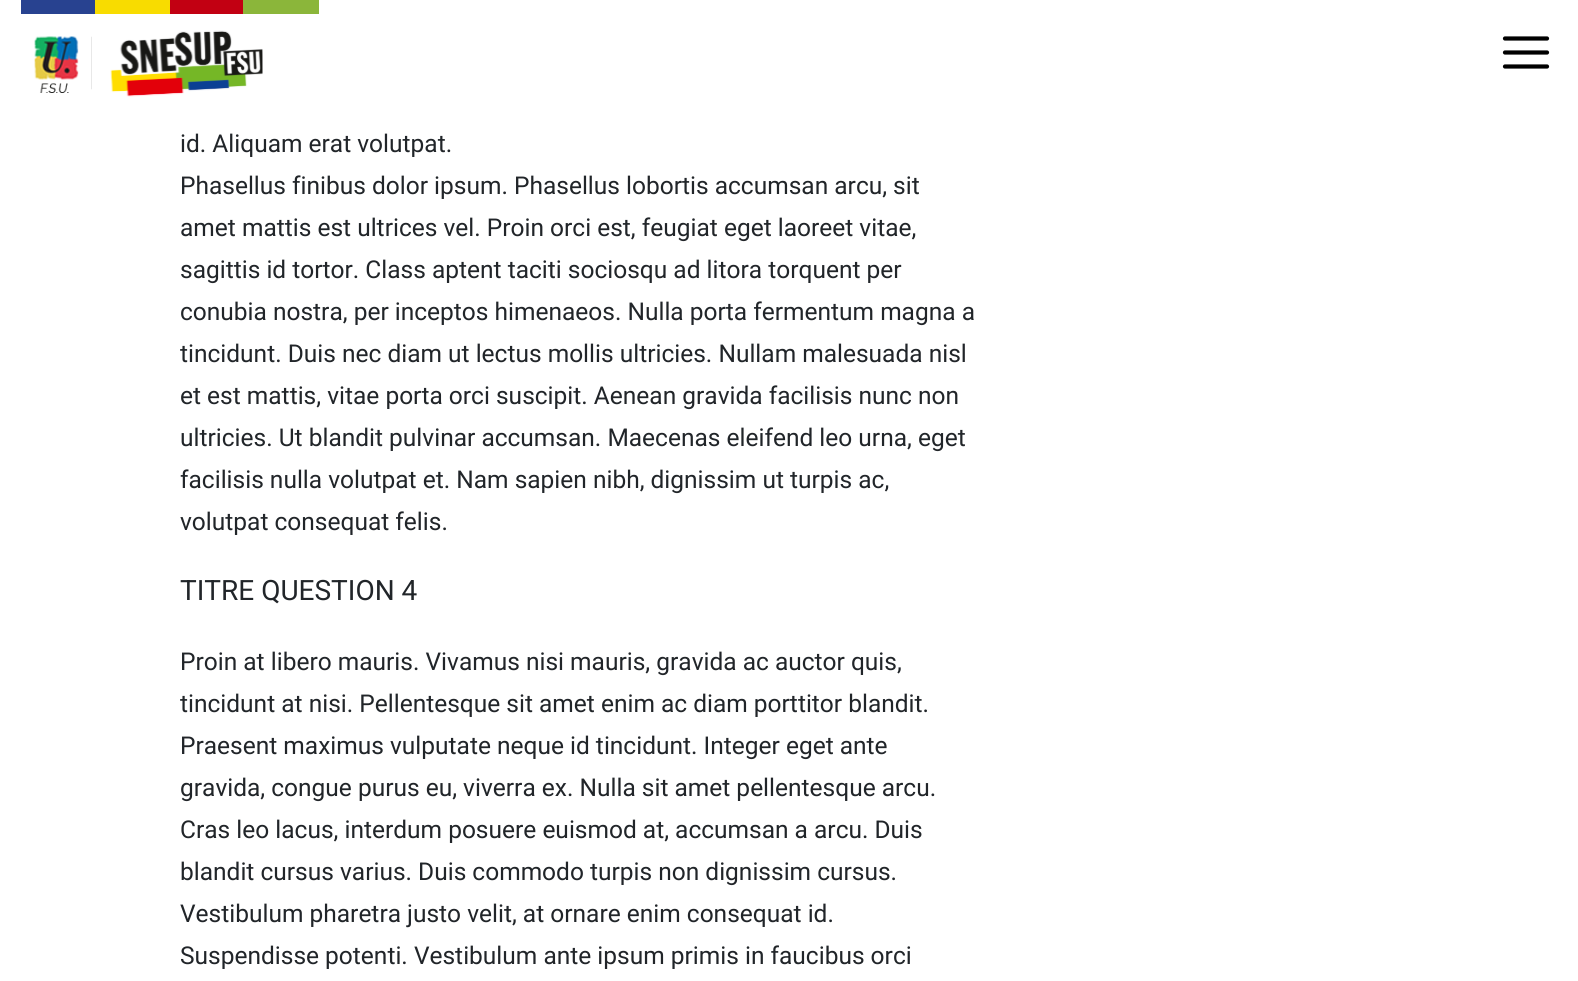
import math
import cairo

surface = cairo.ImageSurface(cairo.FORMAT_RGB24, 1578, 981)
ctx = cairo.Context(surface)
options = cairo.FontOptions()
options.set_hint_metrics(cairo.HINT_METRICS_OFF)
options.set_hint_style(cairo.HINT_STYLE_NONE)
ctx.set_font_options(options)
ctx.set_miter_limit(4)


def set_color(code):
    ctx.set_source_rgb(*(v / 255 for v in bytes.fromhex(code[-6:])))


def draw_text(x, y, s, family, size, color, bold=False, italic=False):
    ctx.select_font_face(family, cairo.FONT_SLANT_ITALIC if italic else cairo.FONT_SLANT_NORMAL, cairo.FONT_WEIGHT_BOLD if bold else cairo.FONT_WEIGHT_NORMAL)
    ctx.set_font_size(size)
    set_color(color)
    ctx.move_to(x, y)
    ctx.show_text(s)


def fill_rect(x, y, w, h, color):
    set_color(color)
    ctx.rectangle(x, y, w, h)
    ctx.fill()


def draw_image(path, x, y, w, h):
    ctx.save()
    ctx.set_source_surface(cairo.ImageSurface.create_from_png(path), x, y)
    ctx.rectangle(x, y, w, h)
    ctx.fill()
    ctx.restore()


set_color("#ffffff")
ctx.paint()
fill_rect(21, 0, 74, 14, "#284290")
fill_rect(95, 0, 75, 14, "#f8dc00")
fill_rect(170, 0, 73, 14, "#c20012")
fill_rect(243, 0, 76, 14, "#8bb63a")
draw_image("assets/img1.png", 34, 36, 45, 57)
draw_image("assets/img2.png", 91, 30, 172, 67)
ctx.new_path()
ctx.move_to(1505, 38.5)
ctx.line_to(1547, 38.5)
ctx.move_to(1505, 52.5)
ctx.line_to(1547, 52.5)
ctx.move_to(1505, 66.5)
ctx.line_to(1547, 66.5)
set_color("#000000")
ctx.set_line_width(4.2)
ctx.set_line_cap(cairo.LINE_CAP_ROUND)
ctx.stroke()
draw_text(180, 152, "id. Aliquam erat volutpat.", "Roboto", 24.5, "#212529")
draw_text(180, 194, "Phasellus finibus dolor ipsum. Phasellus lobortis accumsan arcu, sit", "Roboto", 24.5, "#212529")
draw_text(180, 236, "amet mattis est ultrices vel. Proin orci est, feugiat eget laoreet vitae,", "Roboto", 24.5, "#212529")
draw_text(180, 278, "sagittis id tortor. Class aptent taciti sociosqu ad litora torquent per", "Roboto", 24.5, "#212529")
draw_text(180, 320, "conubia nostra, per inceptos himenaeos. Nulla porta fermentum magna a", "Roboto", 24.5, "#212529")
draw_text(180, 362, "tincidunt. Duis nec diam ut lectus mollis ultricies. Nullam malesuada nisl", "Roboto", 24.5, "#212529")
draw_text(180, 404, "et est mattis, vitae porta orci suscipit. Aenean gravida facilisis nunc non", "Roboto", 24.5, "#212529")
draw_text(180, 446, "ultricies. Ut blandit pulvinar accumsan. Maecenas eleifend leo urna, eget", "Roboto", 24.5, "#212529")
draw_text(180, 488, "facilisis nulla volutpat et. Nam sapien nibh, dignissim ut turpis ac,", "Roboto", 24.5, "#212529")
draw_text(180, 530, "volutpat consequat felis.", "Roboto", 24.5, "#212529")
draw_text(180, 600, "TITRE QUESTION 4", "Roboto", 28, "#212529")
draw_text(180, 670, "Proin at libero mauris. Vivamus nisi mauris, gravida ac auctor quis,", "Roboto", 24.5, "#212529")
draw_text(180, 712, "tincidunt at nisi. Pellentesque sit amet enim ac diam porttitor blandit.", "Roboto", 24.5, "#212529")
draw_text(180, 754, "Praesent maximus vulputate neque id tincidunt. Integer eget ante", "Roboto", 24.5, "#212529")
draw_text(180, 796, "gravida, congue purus eu, viverra ex. Nulla sit amet pellentesque arcu.", "Roboto", 24.5, "#212529")
draw_text(180, 838, "Cras leo lacus, interdum posuere euismod at, accumsan a arcu. Duis", "Roboto", 24.5, "#212529")
draw_text(180, 880, "blandit cursus varius. Duis commodo turpis non dignissim cursus.", "Roboto", 24.5, "#212529")
draw_text(180, 922, "Vestibulum pharetra justo velit, at ornare enim consequat id.", "Roboto", 24.5, "#212529")
draw_text(180, 964, "Suspendisse potenti. Vestibulum ante ipsum primis in faucibus orci", "Roboto", 24.5, "#212529")
surface.write_to_png("output.png")
